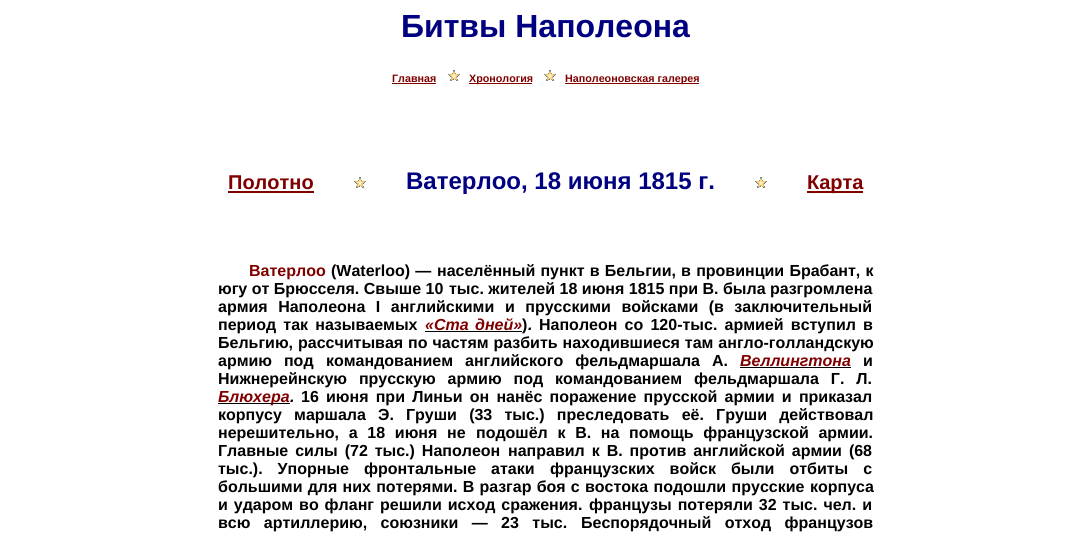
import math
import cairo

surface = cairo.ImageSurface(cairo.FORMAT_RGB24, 1091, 540)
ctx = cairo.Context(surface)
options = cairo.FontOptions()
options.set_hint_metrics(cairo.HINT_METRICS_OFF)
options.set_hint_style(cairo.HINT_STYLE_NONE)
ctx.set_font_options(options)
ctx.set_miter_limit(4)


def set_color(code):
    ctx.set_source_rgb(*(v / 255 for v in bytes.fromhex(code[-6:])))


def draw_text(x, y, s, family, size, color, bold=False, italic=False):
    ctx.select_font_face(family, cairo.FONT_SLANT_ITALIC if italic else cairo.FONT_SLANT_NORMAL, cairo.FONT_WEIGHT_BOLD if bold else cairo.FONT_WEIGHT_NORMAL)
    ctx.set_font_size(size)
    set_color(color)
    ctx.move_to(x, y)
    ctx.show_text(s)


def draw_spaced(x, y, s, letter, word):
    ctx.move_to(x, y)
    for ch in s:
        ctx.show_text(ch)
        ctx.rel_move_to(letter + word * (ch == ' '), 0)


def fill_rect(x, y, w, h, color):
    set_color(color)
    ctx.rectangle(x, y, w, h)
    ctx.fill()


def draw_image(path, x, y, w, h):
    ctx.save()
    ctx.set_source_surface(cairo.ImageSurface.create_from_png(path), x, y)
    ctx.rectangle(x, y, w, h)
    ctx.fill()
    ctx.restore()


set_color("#ffffff")
ctx.paint()
draw_text(401, 37, "Битвы Наполеона", "Liberation Sans", 32, "#000080", bold=True)
draw_text(392, 82, "Главная", "Liberation Sans", 10.75, "#800000", bold=True)
fill_rect(392, 83, 44, 1, "#800000")
draw_image("assets/img1.png", 448, 70, 12, 11)
fill_rect(469, 83, 63, 1, "#800000")
draw_text(469, 82, "Хронология", "Liberation Sans", 10.75, "#800000", bold=True)
draw_image("assets/img1.png", 544, 70, 12, 11)
fill_rect(565, 83, 134, 1, "#800000")
draw_text(565, 82, "Наполеоновская галерея", "Liberation Sans", 10.75, "#800000", bold=True)
draw_text(228, 189, "Полотно", "Liberation Sans", 20, "#800000", bold=True)
fill_rect(228, 191, 86, 2, "#800000")
draw_image("assets/img1.png", 354, 177, 12, 11)
draw_text(406, 189, "Ватерлоо, 18 июня 1815 г.", "Liberation Sans", 24, "#000080", bold=True)
draw_image("assets/img1.png", 755, 177, 12, 11)
fill_rect(807, 191, 56, 2, "#800000")
draw_text(807, 189, "Карта", "Liberation Sans", 20, "#800000", bold=True)
draw_text(249, 276, "Ватерлоо", "Liberation Sans", 16, "#800000", bold=True)
set_color("#000000")
draw_spaced(331, 276, "(Waterloo) —", 0, 0.75)
draw_spaced(437, 276, "населённый пункт в Бельгии, в провинции Брабант, к", 0, 0.75)
draw_text(218, 294, "югу от Брюсселя. Свыше 10", "Liberation Sans", 16, "#000000", bold=True)
draw_text(449, 294, "тыс. жителей 18 июня 1815 при В. была разгромлена", "Liberation Sans", 16, "#000000", bold=True)
draw_spaced(218, 312, "армия Наполеона I английскими", 0, 6)
draw_spaced(505, 312, "и прусскими войсками (в заключительный", 0, 6)
draw_spaced(218, 330, "период так называемых", 0, 2.75)
draw_text(425, 330, "«Ста", "Liberation Sans", 16, "#800000", bold=True, italic=True)
fill_rect(425, 331, 97, 1, "#000000")
draw_text(475, 330, "дней»", "Liberation Sans", 16, "#800000", bold=True, italic=True)
draw_text(522, 330, ")", "Liberation Sans", 16, "#000000", bold=True)
draw_text(528, 330, ".", "Liberation Sans", 16, "#000000", bold=True, italic=True)
ctx.select_font_face("Liberation Sans", cairo.FONT_SLANT_NORMAL, cairo.FONT_WEIGHT_BOLD)
draw_spaced(539, 330, "Наполеон со 120-тыс. армией вступил в", 0, 2.75)
draw_text(218, 348, "Бельгию,", "Liberation Sans", 16, "#000000", bold=True)
draw_spaced(298, 348, "рассчитывая по частям разбить находившиеся там англо-голландскую", 0, 0.5)
draw_spaced(218, 366, "армию под", 0, 7.5)
draw_spaced(326, 366, "командованием английского фельдмаршала А.", 0, 7.5)
draw_text(740, 366, "Веллингтона", "Liberation Sans", 16, "#800000", bold=True, italic=True)
fill_rect(740, 367, 111, 1, "#000000")
draw_text(863, 366, "и", "Liberation Sans", 16, "#000000", bold=True)
draw_spaced(218, 384, "Нижнерейнскую прусскую армию под командованием фельдмаршала Г. Л.", 0, 7.5)
fill_rect(218, 403, 72, 1, "#000000")
draw_text(218, 402, "Блюхера", "Liberation Sans", 16, "#800000", bold=True, italic=True)
draw_text(290, 402, ".", "Liberation Sans", 16, "#000000", bold=True, italic=True)
ctx.select_font_face("Liberation Sans", cairo.FONT_SLANT_NORMAL, cairo.FONT_WEIGHT_BOLD)
draw_spaced(301, 402, "16 июня при Линьи он нанёс поражение прусской армии и приказал", 0, 2.75)
draw_spaced(218, 420, "корпусу маршала", 0, 7.75)
draw_spaced(378, 420, "Э. Груши (33 тыс.) преследовать её. Груши действовал", 0, 7.75)
draw_spaced(218, 438, "нерешительно, а 18 июня не", 0, 5.25)
draw_spaced(476, 438, "подошёл к В. на помощь французской армии.", 0, 5.25)
draw_spaced(218, 456, "Главные силы (72 тыс.) Наполеон", 0, 2.5)
draw_spaced(508, 456, "направил к В. против английской армии (68", 0, 2.5)
draw_spaced(218, 474, "тыс.). Упорные фронтальные атаки", 0, 10.5)
draw_spaced(550, 474, "французских войск были отбиты с", 0, 10.5)
draw_spaced(218, 492, "большими для них потерями. В разгар боя с", 0, 0.75)
draw_spaced(585, 492, "востока подошли прусские корпуса", 0, 1)
draw_spaced(218, 510, "и ударом во фланг решили исход сражения.", 0, 1.5)
draw_spaced(589, 510, "французы потеряли 32 тыс. чел. и", 0, 1.5)
draw_spaced(218, 528, "всю артиллерию, союзники — 23 тыс.", 0, 9)
draw_spaced(581, 528, "Беспорядочный отход французов", 0, 9)
surface.write_to_png("output.png")
